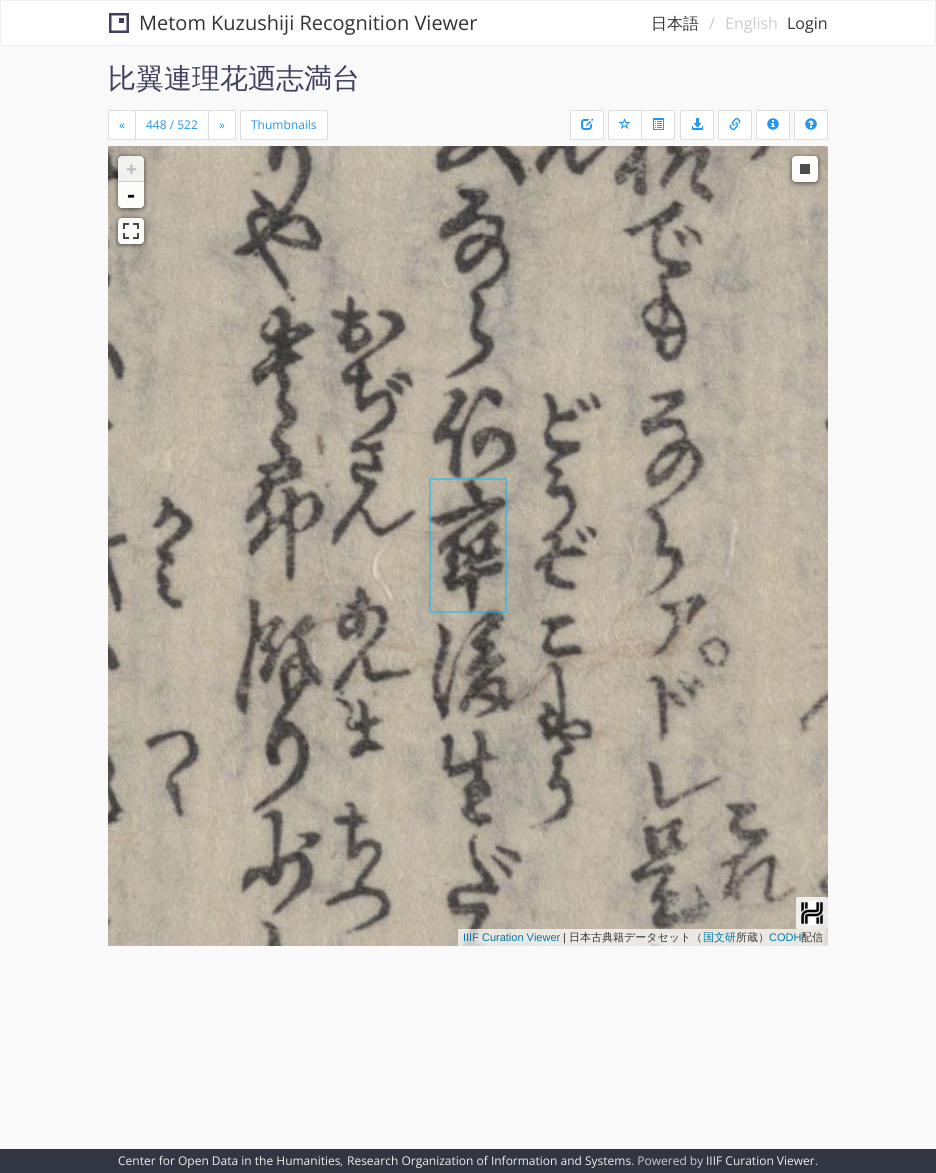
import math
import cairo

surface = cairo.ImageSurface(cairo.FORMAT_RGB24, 936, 1173)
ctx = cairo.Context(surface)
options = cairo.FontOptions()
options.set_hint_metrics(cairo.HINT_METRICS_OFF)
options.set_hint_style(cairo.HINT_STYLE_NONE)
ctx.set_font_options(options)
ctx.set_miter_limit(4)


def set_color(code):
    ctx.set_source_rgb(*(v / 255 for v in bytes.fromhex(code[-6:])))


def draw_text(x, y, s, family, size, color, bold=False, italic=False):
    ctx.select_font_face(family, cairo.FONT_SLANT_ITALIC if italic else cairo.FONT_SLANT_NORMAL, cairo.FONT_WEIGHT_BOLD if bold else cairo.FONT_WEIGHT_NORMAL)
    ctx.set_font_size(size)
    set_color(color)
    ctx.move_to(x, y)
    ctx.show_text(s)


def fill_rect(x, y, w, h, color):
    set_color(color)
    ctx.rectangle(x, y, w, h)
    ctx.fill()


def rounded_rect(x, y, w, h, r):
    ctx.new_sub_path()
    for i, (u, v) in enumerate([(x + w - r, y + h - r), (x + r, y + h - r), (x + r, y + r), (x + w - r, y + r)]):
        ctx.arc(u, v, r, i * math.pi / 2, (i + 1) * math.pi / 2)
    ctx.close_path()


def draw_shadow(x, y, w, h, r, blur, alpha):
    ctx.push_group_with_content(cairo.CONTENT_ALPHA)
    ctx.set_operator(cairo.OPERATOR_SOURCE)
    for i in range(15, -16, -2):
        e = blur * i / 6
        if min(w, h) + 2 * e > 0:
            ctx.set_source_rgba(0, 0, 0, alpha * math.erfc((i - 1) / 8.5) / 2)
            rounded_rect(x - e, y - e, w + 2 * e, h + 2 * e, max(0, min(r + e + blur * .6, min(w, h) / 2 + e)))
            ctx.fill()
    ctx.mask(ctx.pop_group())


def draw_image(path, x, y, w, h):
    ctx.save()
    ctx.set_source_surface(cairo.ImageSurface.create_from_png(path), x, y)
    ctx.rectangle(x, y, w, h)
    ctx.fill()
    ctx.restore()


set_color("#f9f9f9")
ctx.paint()
set_color("#ffffff")
rounded_rect(0.5, 0.5, 935, 45, 1.5)
ctx.fill_preserve()
set_color("#eeeeee")
ctx.set_line_width(1)
ctx.stroke()
draw_image("assets/img1.png", 109, 13, 20, 20)
draw_text(139, 30, "Metom Kuzushiji Recognition Viewer", "Open Sans", 20, "#333333")
draw_text(651, 29, "日本語", "WenQuanYi Zen Hei Medium", 16, "#333333")
draw_text(709, 29, "/", "Open Sans", 16, "#cccccc")
draw_text(725, 29, "English", "Open Sans", 16, "#cccccc")
draw_text(787, 29, "Login", "Open Sans", 16, "#333333")
draw_text(108, 88, "比翼連理花迺志満台", "WenQuanYi Zen Hei Medium", 28, "#3f415e")
set_color("#ffffff")
ctx.new_path()
ctx.move_to(109, 110.5)
ctx.line_to(135.5, 110.5)
ctx.line_to(135.5, 139.5)
ctx.line_to(109, 139.5)
ctx.curve_to(108.5, 139.5, 108.5, 139.5, 108.5, 139)
ctx.line_to(108.5, 111)
ctx.curve_to(108.5, 110.5, 108.5, 110.5, 109, 110.5)
ctx.close_path()
ctx.fill_preserve()
set_color("#dddddd")
ctx.stroke()
draw_text(119, 129, "«", "Open Sans", 12, "#2196f3")
set_color("#ffffff")
ctx.rectangle(135.5, 110.5, 73, 29)
ctx.fill_preserve()
set_color("#dddddd")
ctx.stroke()
draw_text(146, 129, "448 / 522", "Open Sans", 12, "#2196f3")
set_color("#ffffff")
ctx.new_path()
ctx.move_to(208.5, 110.5)
ctx.line_to(235, 110.5)
ctx.curve_to(235.5, 110.5, 235.5, 110.5, 235.5, 111)
ctx.line_to(235.5, 139)
ctx.curve_to(235.5, 139.5, 235.5, 139.5, 235, 139.5)
ctx.line_to(208.5, 139.5)
ctx.close_path()
ctx.fill_preserve()
set_color("#dddddd")
ctx.stroke()
draw_text(219, 129, "»", "Open Sans", 12, "#2196f3")
set_color("#ffffff")
rounded_rect(240.5, 110.5, 87, 29, 0.5)
ctx.fill_preserve()
set_color("#dddddd")
ctx.stroke()
draw_text(251, 129, "Thumbnails", "Open Sans", 12, "#2196f3")
set_color("#ffffff")
rounded_rect(570.5, 110.5, 33, 29, 0.5)
ctx.fill_preserve()
set_color("#dddddd")
ctx.stroke()
draw_image("assets/img2.png", 581, 118, 13, 12)
set_color("#ffffff")
ctx.new_path()
ctx.move_to(609, 110.5)
ctx.line_to(641.5, 110.5)
ctx.line_to(641.5, 139.5)
ctx.line_to(609, 139.5)
ctx.curve_to(608.5, 139.5, 608.5, 139.5, 608.5, 139)
ctx.line_to(608.5, 111)
ctx.curve_to(608.5, 110.5, 608.5, 110.5, 609, 110.5)
ctx.close_path()
ctx.fill_preserve()
set_color("#dddddd")
ctx.stroke()
draw_image("assets/img3.png", 618, 118, 13, 11)
set_color("#ffffff")
ctx.new_path()
ctx.move_to(641.5, 110.5)
ctx.line_to(674, 110.5)
ctx.curve_to(674.5, 110.5, 674.5, 110.5, 674.5, 111)
ctx.line_to(674.5, 139)
ctx.curve_to(674.5, 139.5, 674.5, 139.5, 674, 139.5)
ctx.line_to(641.5, 139.5)
ctx.close_path()
ctx.fill_preserve()
set_color("#dddddd")
ctx.stroke()
draw_image("assets/img4.png", 653, 118, 11, 12)
set_color("#ffffff")
rounded_rect(680.5, 110.5, 33, 29, 0.5)
ctx.fill_preserve()
set_color("#dddddd")
ctx.stroke()
draw_image("assets/img5.png", 692, 118, 11, 12)
set_color("#ffffff")
rounded_rect(718.5, 110.5, 33, 29, 0.5)
ctx.fill_preserve()
set_color("#dddddd")
ctx.stroke()
draw_image("assets/img6.png", 729, 117, 12, 14)
set_color("#ffffff")
rounded_rect(756.5, 110.5, 33, 29, 0.5)
ctx.fill_preserve()
set_color("#dddddd")
ctx.stroke()
draw_image("assets/img7.png", 767, 118, 12, 12)
set_color("#ffffff")
rounded_rect(794.5, 110.5, 33, 29, 0.5)
ctx.fill_preserve()
set_color("#dddddd")
ctx.stroke()
draw_image("assets/img8.png", 805, 118, 12, 12)
draw_image("assets/img9.png", 108, 146, 716, 472)
draw_image("assets/img10.png", 824, 146, 4, 472)
draw_image("assets/img11.png", 108, 618, 716, 328)
draw_image("assets/img12.png", 824, 618, 4, 328)
ctx.new_path()
ctx.move_to(430, 612)
ctx.line_to(430, 479)
ctx.line_to(506, 479)
ctx.line_to(506, 612)
ctx.close_path()
ctx.set_source_rgba(0, 0.749, 1, 0.5)
ctx.set_line_width(2)
ctx.set_line_cap(cairo.LINE_CAP_ROUND)
ctx.set_line_join(cairo.LINE_JOIN_ROUND)
ctx.stroke()
ctx.save()
ctx.set_fill_rule(cairo.FILL_RULE_EVEN_ODD)
ctx.new_path()
ctx.move_to(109, 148)
ctx.line_to(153, 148)
ctx.line_to(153, 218)
ctx.line_to(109, 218)
ctx.close_path()
ctx.move_to(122, 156)
ctx.line_to(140, 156)
ctx.curve_to(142, 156, 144, 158, 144, 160)
ctx.line_to(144, 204)
ctx.curve_to(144, 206, 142, 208, 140, 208)
ctx.line_to(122, 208)
ctx.curve_to(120, 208, 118, 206, 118, 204)
ctx.line_to(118, 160)
ctx.curve_to(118, 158, 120, 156, 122, 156)
ctx.close_path()
ctx.clip()
set_color("#000000")
draw_shadow(118, 157, 26, 52, 4, 2.5, 0.63)
ctx.restore()
ctx.set_source_rgba(0.957, 0.957, 0.957, 0.96)
ctx.new_path()
ctx.move_to(122, 156)
ctx.line_to(140, 156)
ctx.curve_to(142, 156, 144, 158, 144, 160)
ctx.line_to(144, 182)
ctx.line_to(118, 182)
ctx.line_to(118, 160)
ctx.curve_to(118, 158, 120, 156, 122, 156)
ctx.close_path()
ctx.fill()
fill_rect(118, 181, 26, 1, "#cdcdcd")
draw_text(126, 175, "+", "DejaVu Sans Mono", 18, "#bdbdbd", bold=True)
ctx.set_source_rgba(1, 1, 1, 0.96)
ctx.new_path()
ctx.move_to(118, 182)
ctx.line_to(144, 182)
ctx.line_to(144, 204)
ctx.curve_to(144, 206, 142, 208, 140, 208)
ctx.line_to(122, 208)
ctx.curve_to(120, 208, 118, 206, 118, 204)
ctx.close_path()
ctx.fill()
draw_text(125, 202, "-", "DejaVu Sans Mono", 20, "#0a0a0a", bold=True)
ctx.save()
ctx.set_fill_rule(cairo.FILL_RULE_EVEN_ODD)
ctx.new_path()
ctx.move_to(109, 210)
ctx.line_to(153, 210)
ctx.line_to(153, 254)
ctx.line_to(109, 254)
ctx.close_path()
ctx.move_to(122, 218)
ctx.line_to(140, 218)
ctx.curve_to(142, 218, 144, 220, 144, 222)
ctx.line_to(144, 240)
ctx.curve_to(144, 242, 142, 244, 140, 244)
ctx.line_to(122, 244)
ctx.curve_to(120, 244, 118, 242, 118, 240)
ctx.line_to(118, 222)
ctx.curve_to(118, 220, 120, 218, 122, 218)
ctx.close_path()
ctx.clip()
set_color("#000000")
draw_shadow(118, 219, 26, 26, 4, 2.5, 0.63)
ctx.restore()
ctx.set_source_rgba(1, 1, 1, 0.96)
rounded_rect(118, 218, 26, 26, 4)
ctx.fill()
draw_image("assets/img13.png", 123, 223, 16, 16)
ctx.save()
ctx.set_fill_rule(cairo.FILL_RULE_EVEN_ODD)
ctx.new_path()
ctx.move_to(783, 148)
ctx.line_to(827, 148)
ctx.line_to(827, 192)
ctx.line_to(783, 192)
ctx.close_path()
ctx.move_to(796, 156)
ctx.line_to(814, 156)
ctx.curve_to(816, 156, 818, 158, 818, 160)
ctx.line_to(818, 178)
ctx.curve_to(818, 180, 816, 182, 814, 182)
ctx.line_to(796, 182)
ctx.curve_to(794, 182, 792, 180, 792, 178)
ctx.line_to(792, 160)
ctx.curve_to(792, 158, 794, 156, 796, 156)
ctx.close_path()
ctx.clip()
set_color("#000000")
draw_shadow(792, 157, 26, 26, 4, 2.5, 0.63)
ctx.restore()
rounded_rect(792, 156, 26, 26, 4)
ctx.fill()
fill_rect(800, 164, 10, 10, "#4d4d4d")
ctx.set_source_rgba(1, 1, 1, 0.7)
rounded_rect(796, 897, 32, 32, 2)
ctx.fill()
draw_image("assets/img14.png", 800, 901, 24, 24)
ctx.rectangle(798, 899, 28, 28)
ctx.set_source_rgba(1, 1, 1, 0.3)
ctx.set_line_width(4)
ctx.set_line_cap(cairo.LINE_CAP_BUTT)
ctx.set_line_join(cairo.LINE_JOIN_MITER)
ctx.stroke()
ctx.set_source_rgba(1, 1, 1, 0.7)
ctx.rectangle(458, 929, 370, 17)
ctx.fill()
draw_text(463, 941, "IIIF Curation Viewer", "Liberation Sans", 11, "#0078a8")
draw_text(563, 941, "|", "Liberation Sans", 11, "#333333")
draw_text(569, 941, "日本古典籍データセット（", "WenQuanYi Zen Hei Medium", 11, "#333333")
draw_text(703, 941, "国文研", "WenQuanYi Zen Hei Medium", 11, "#0078a8")
draw_text(736, 941, "所蔵）", "WenQuanYi Zen Hei Medium", 11, "#333333")
draw_text(769, 941, "CODH", "Liberation Sans", 11, "#0078a8")
draw_text(801, 941, "配信", "WenQuanYi Zen Hei Medium", 11, "#333333")
fill_rect(0, 1149, 936, 24, "#313642")
draw_text(118, 1165, "Center for Open Data in the Humanities", "Open Sans", 12, "#eeeeee")
draw_text(340, 1165, ",", "Open Sans", 12, "#cccccc")
draw_text(347, 1165, "Research Organization of Information and Systems", "Open Sans", 12, "#eeeeee")
draw_text(631, 1165, ". Powered by", "Open Sans", 12, "#cccccc")
draw_text(706, 1165, "IIIF Curation Viewer", "Open Sans", 12, "#eeeeee")
draw_text(815, 1165, ".", "Open Sans", 12, "#cccccc")
surface.write_to_png("output.png")
